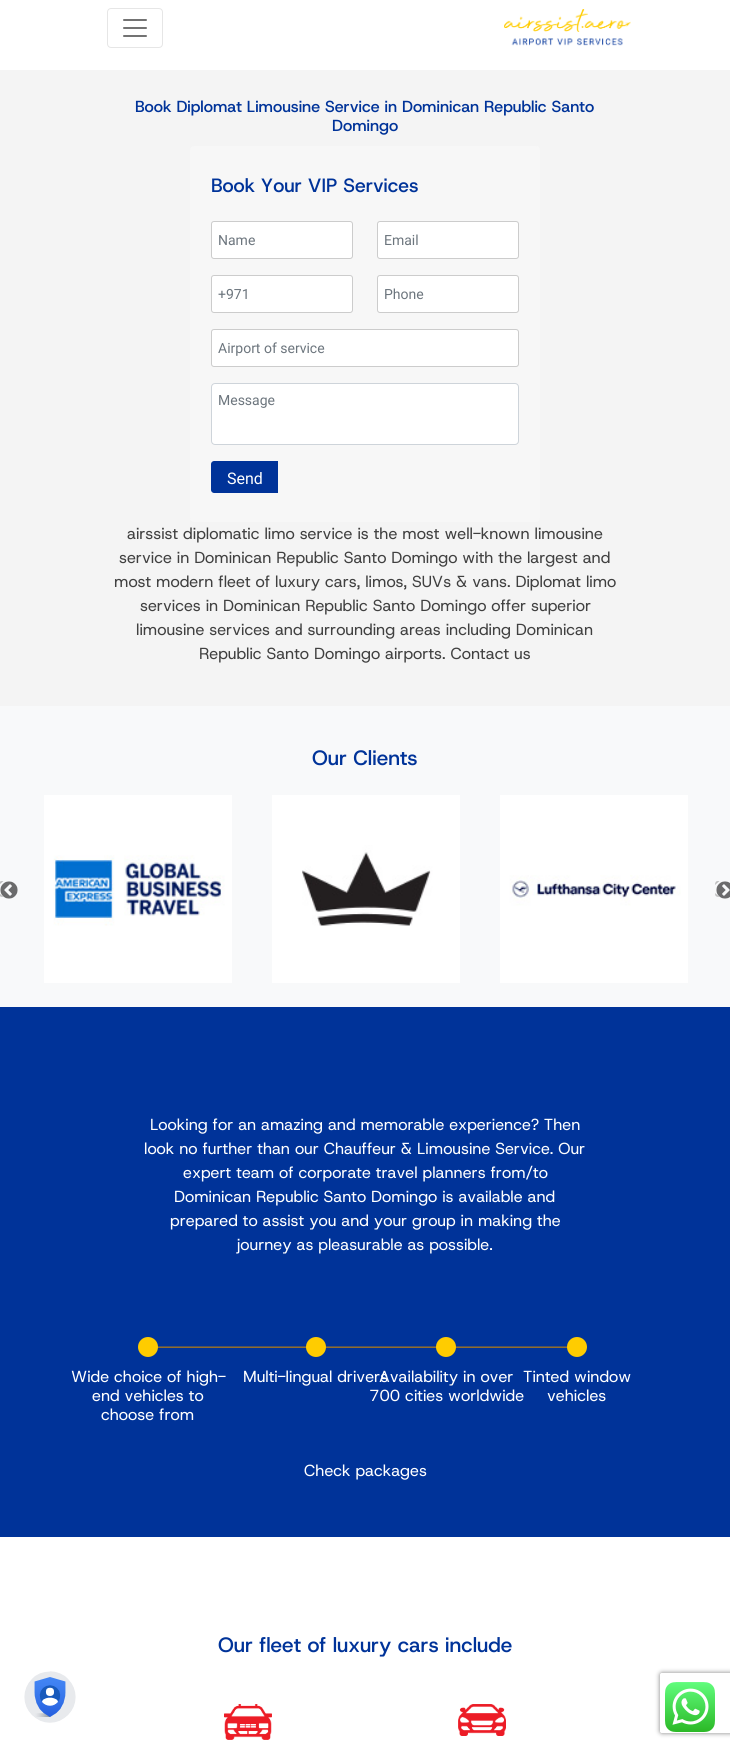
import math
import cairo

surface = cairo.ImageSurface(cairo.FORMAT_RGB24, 730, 1747)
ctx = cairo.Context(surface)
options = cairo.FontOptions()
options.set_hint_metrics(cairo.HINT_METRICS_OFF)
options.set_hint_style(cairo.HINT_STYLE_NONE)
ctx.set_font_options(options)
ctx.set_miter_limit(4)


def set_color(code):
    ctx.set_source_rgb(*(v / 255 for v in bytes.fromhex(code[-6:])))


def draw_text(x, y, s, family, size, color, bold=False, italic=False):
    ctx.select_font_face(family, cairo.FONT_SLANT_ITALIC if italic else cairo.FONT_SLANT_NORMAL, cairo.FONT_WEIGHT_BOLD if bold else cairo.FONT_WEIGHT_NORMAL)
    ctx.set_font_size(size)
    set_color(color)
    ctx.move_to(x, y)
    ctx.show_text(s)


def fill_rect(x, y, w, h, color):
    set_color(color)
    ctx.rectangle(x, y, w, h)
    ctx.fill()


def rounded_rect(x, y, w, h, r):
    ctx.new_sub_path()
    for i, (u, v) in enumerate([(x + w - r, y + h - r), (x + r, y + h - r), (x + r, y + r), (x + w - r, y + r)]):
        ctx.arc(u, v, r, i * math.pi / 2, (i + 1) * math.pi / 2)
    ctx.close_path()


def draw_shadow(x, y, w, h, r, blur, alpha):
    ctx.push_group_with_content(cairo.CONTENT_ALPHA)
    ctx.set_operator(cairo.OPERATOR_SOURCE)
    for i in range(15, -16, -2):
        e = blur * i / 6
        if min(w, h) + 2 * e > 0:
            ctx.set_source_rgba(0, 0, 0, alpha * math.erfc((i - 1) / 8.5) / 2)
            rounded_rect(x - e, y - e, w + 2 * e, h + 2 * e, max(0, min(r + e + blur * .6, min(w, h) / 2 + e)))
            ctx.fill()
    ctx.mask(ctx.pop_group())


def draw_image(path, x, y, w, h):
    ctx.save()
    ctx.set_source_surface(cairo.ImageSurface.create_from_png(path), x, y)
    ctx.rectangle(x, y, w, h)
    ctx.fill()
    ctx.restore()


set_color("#ffffff")
ctx.paint()
rounded_rect(107.5, 8.5, 55, 39, 3.5)
set_color("#e6e6e6")
ctx.set_line_width(1)
ctx.stroke()
draw_image("assets/img1.png", 123, 19, 24, 18)
draw_image("assets/img2.png", 504, 9, 127, 37)
fill_rect(0, 70, 730, 636, "#f4f4f4")
draw_text(135, 112, "Book Diplomat Limousine Service in Dominican Republic Santo", "Host Grotesk Medium", 16, "#003399")
draw_text(332, 131, "Domingo", "Host Grotesk Medium", 16, "#003399")
set_color("#f7f7f7")
rounded_rect(190, 146, 350, 376, 4)
ctx.fill()
draw_text(211, 192, "Book Your VIP Services", "Host Grotesk Medium", 19.25, "#003399")
set_color("#ffffff")
rounded_rect(211.5, 221.5, 141, 37, 2.5)
ctx.fill_preserve()
set_color("#cccccc")
ctx.stroke()
draw_text(218, 245, "Name", "Roboto", 14, "#6c757d")
set_color("#ffffff")
rounded_rect(377.5, 221.5, 141, 37, 2.5)
ctx.fill_preserve()
set_color("#cccccc")
ctx.stroke()
draw_text(384, 245, "Email", "Roboto", 14, "#6c757d")
set_color("#ffffff")
rounded_rect(211.5, 275.5, 141, 37, 2.5)
ctx.fill_preserve()
set_color("#cccccc")
ctx.stroke()
draw_text(218, 299, "+971", "Roboto", 14, "#6c757d")
set_color("#ffffff")
rounded_rect(377.5, 275.5, 141, 37, 2.5)
ctx.fill_preserve()
set_color("#cccccc")
ctx.stroke()
draw_text(384, 299, "Phone", "Roboto", 14, "#6c757d")
set_color("#ffffff")
rounded_rect(211.5, 329.5, 307, 37, 2.5)
ctx.fill_preserve()
set_color("#cccccc")
ctx.stroke()
draw_text(218, 353, "Airport of service", "Roboto", 14, "#6c757d")
set_color("#ffffff")
rounded_rect(211.5, 383.5, 307, 61, 3.5)
ctx.fill_preserve()
set_color("#ced4da")
ctx.stroke()
draw_text(218, 405, "Message", "Roboto", 14, "#6c757d")
set_color("#003399")
ctx.new_path()
ctx.move_to(214, 461)
ctx.line_to(278, 461)
ctx.line_to(278, 493)
ctx.line_to(214, 493)
ctx.curve_to(212.5, 493, 211, 491.5, 211, 490)
ctx.line_to(211, 464)
ctx.curve_to(211, 462.5, 212.5, 461, 214, 461)
ctx.close_path()
ctx.fill()
draw_text(227, 484, "Send", "Roboto", 16, "#ffffff")
draw_text(127, 539, "airssist diplomatic limo service is the most well-known limousine", "Host Grotesk", 16, "#404040")
draw_text(119, 563, "service in Dominican Republic Santo Domingo with the largest and", "Host Grotesk", 16, "#404040")
draw_text(114, 587, "most modern fleet of luxury cars, limos, SUVs & vans. Diplomat limo", "Host Grotesk", 16, "#404040")
draw_text(140, 611, "services in Dominican Republic Santo Domingo offer superior", "Host Grotesk", 16, "#404040")
draw_text(136, 635, "limousine services and surrounding areas including Dominican", "Host Grotesk", 16, "#404040")
draw_text(199, 659, "Republic Santo Domingo airports. Contact us", "Host Grotesk", 16, "#404040")
fill_rect(0, 706, 730, 301, "#f8f9fa")
draw_text(312, 765, "Our Clients", "Host Grotesk Medium", 20.75, "#003399")
set_color("#bebebe")
ctx.set_fill_rule(cairo.FILL_RULE_EVEN_ODD)
ctx.new_path()
ctx.move_to(2, 881)
ctx.curve_to(-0.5, 881, -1, 883, -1, 885)
ctx.line_to(3.5, 881)
ctx.close_path()
ctx.move_to(-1, 893)
ctx.curve_to(-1, 896, 0, 897, 3.5, 897)
ctx.close_path()
ctx.fill()
draw_image("assets/img3.png", 0, 881, 18, 18)
draw_image("assets/img4.png", 44, 795, 188, 188)
draw_image("assets/img5.png", 272, 795, 188, 188)
draw_image("assets/img6.png", 500, 795, 188, 188)
ctx.new_path()
ctx.move_to(718, 881)
ctx.curve_to(715.5, 881, 715, 883, 715, 885)
ctx.line_to(719.5, 881)
ctx.close_path()
ctx.move_to(715, 893)
ctx.curve_to(715, 896, 716, 897, 719.5, 897)
ctx.close_path()
ctx.fill()
draw_image("assets/img7.png", 716, 881, 14, 18)
fill_rect(0, 1007, 730, 530, "#003399")
draw_text(150, 1130, "Looking for an amazing and memorable experience? Then", "Host Grotesk", 16, "#ffffff")
draw_text(144, 1154, "look no further than our Chauffeur & Limousine Service. Our", "Host Grotesk", 16, "#ffffff")
draw_text(183, 1178, "expert team of corporate travel planners from/to", "Host Grotesk", 16, "#ffffff")
draw_text(174, 1202, "Dominican Republic Santo Domingo is available and", "Host Grotesk", 16, "#ffffff")
draw_text(170, 1226, "prepared to assist you and your group in making the", "Host Grotesk", 16, "#ffffff")
draw_text(237, 1250, "journey as pleasurable as possible.", "Host Grotesk", 16, "#ffffff")
gradient = cairo.LinearGradient(365, 1337, 365, 1357)
gradient.add_color_stop_rgba(0, 0, 0.2, 0.6, 1)
gradient.add_color_stop_rgba(0.45, 0, 0.2, 0.6, 1)
gradient.add_color_stop_rgba(0.51, 0.749, 0.502, 0.043, 1)
gradient.add_color_stop_rgba(0.57, 0, 0.2, 0.6, 1)
gradient.add_color_stop_rgba(1, 0, 0.2, 0.6, 1)
ctx.set_source(gradient)
ctx.rectangle(143, 1346, 444, 2)
ctx.fill()
set_color("#ffcc00")
ctx.arc(148, 1347, 10, 0, 2 * math.pi)
ctx.fill()
draw_text(71, 1382, "Wide choice of high-", "Host Grotesk", 16, "#ffffff")
draw_text(92, 1401, "end vehicles to", "Host Grotesk", 16, "#ffffff")
draw_text(101, 1420, "choose from", "Host Grotesk", 16, "#ffffff")
set_color("#ffcc00")
ctx.new_path()
ctx.arc(316, 1347, 10, 0, 2 * math.pi)
ctx.fill()
draw_text(243, 1382, "Multi-lingual drivers", "Host Grotesk", 16, "#ffffff")
set_color("#ffcc00")
ctx.new_path()
ctx.arc(446, 1347, 10, 0, 2 * math.pi)
ctx.fill()
draw_text(379, 1382, "Availability in over", "Host Grotesk", 16, "#ffffff")
draw_text(369, 1401, "700 cities worldwide", "Host Grotesk", 16, "#ffffff")
set_color("#ffcc00")
ctx.new_path()
ctx.arc(577, 1347, 10, 0, 2 * math.pi)
ctx.fill()
draw_text(523, 1382, "Tinted window", "Host Grotesk", 16, "#ffffff")
draw_text(547, 1401, "vehicles", "Host Grotesk", 16, "#ffffff")
draw_text(304, 1476, "Check packages", "Host Grotesk", 16, "#ffffff")
draw_text(218, 1652, "Our fleet of luxury cars include", "Host Grotesk Medium", 20.75, "#003399")
draw_image("assets/img8.png", 224, 1704, 48, 36)
draw_image("assets/img9.png", 458, 1704, 48, 32)
draw_image("assets/img10.png", 24, 1671, 52, 52)
ctx.save()
ctx.new_path()
ctx.move_to(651, 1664)
ctx.line_to(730, 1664)
ctx.line_to(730, 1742)
ctx.line_to(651, 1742)
ctx.close_path()
ctx.move_to(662, 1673)
ctx.line_to(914, 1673)
ctx.curve_to(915, 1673, 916, 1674, 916, 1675)
ctx.line_to(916, 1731)
ctx.curve_to(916, 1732, 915, 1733, 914, 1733)
ctx.line_to(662, 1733)
ctx.curve_to(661, 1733, 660, 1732, 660, 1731)
ctx.line_to(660, 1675)
ctx.curve_to(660, 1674, 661, 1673, 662, 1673)
ctx.close_path()
ctx.clip()
set_color("#808080")
draw_shadow(660, 1673, 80, 60, 2, 2.5, 1)
ctx.restore()
draw_image("assets/img11.png", 665, 1682, 50, 50)
surface.write_to_png("output.png")
